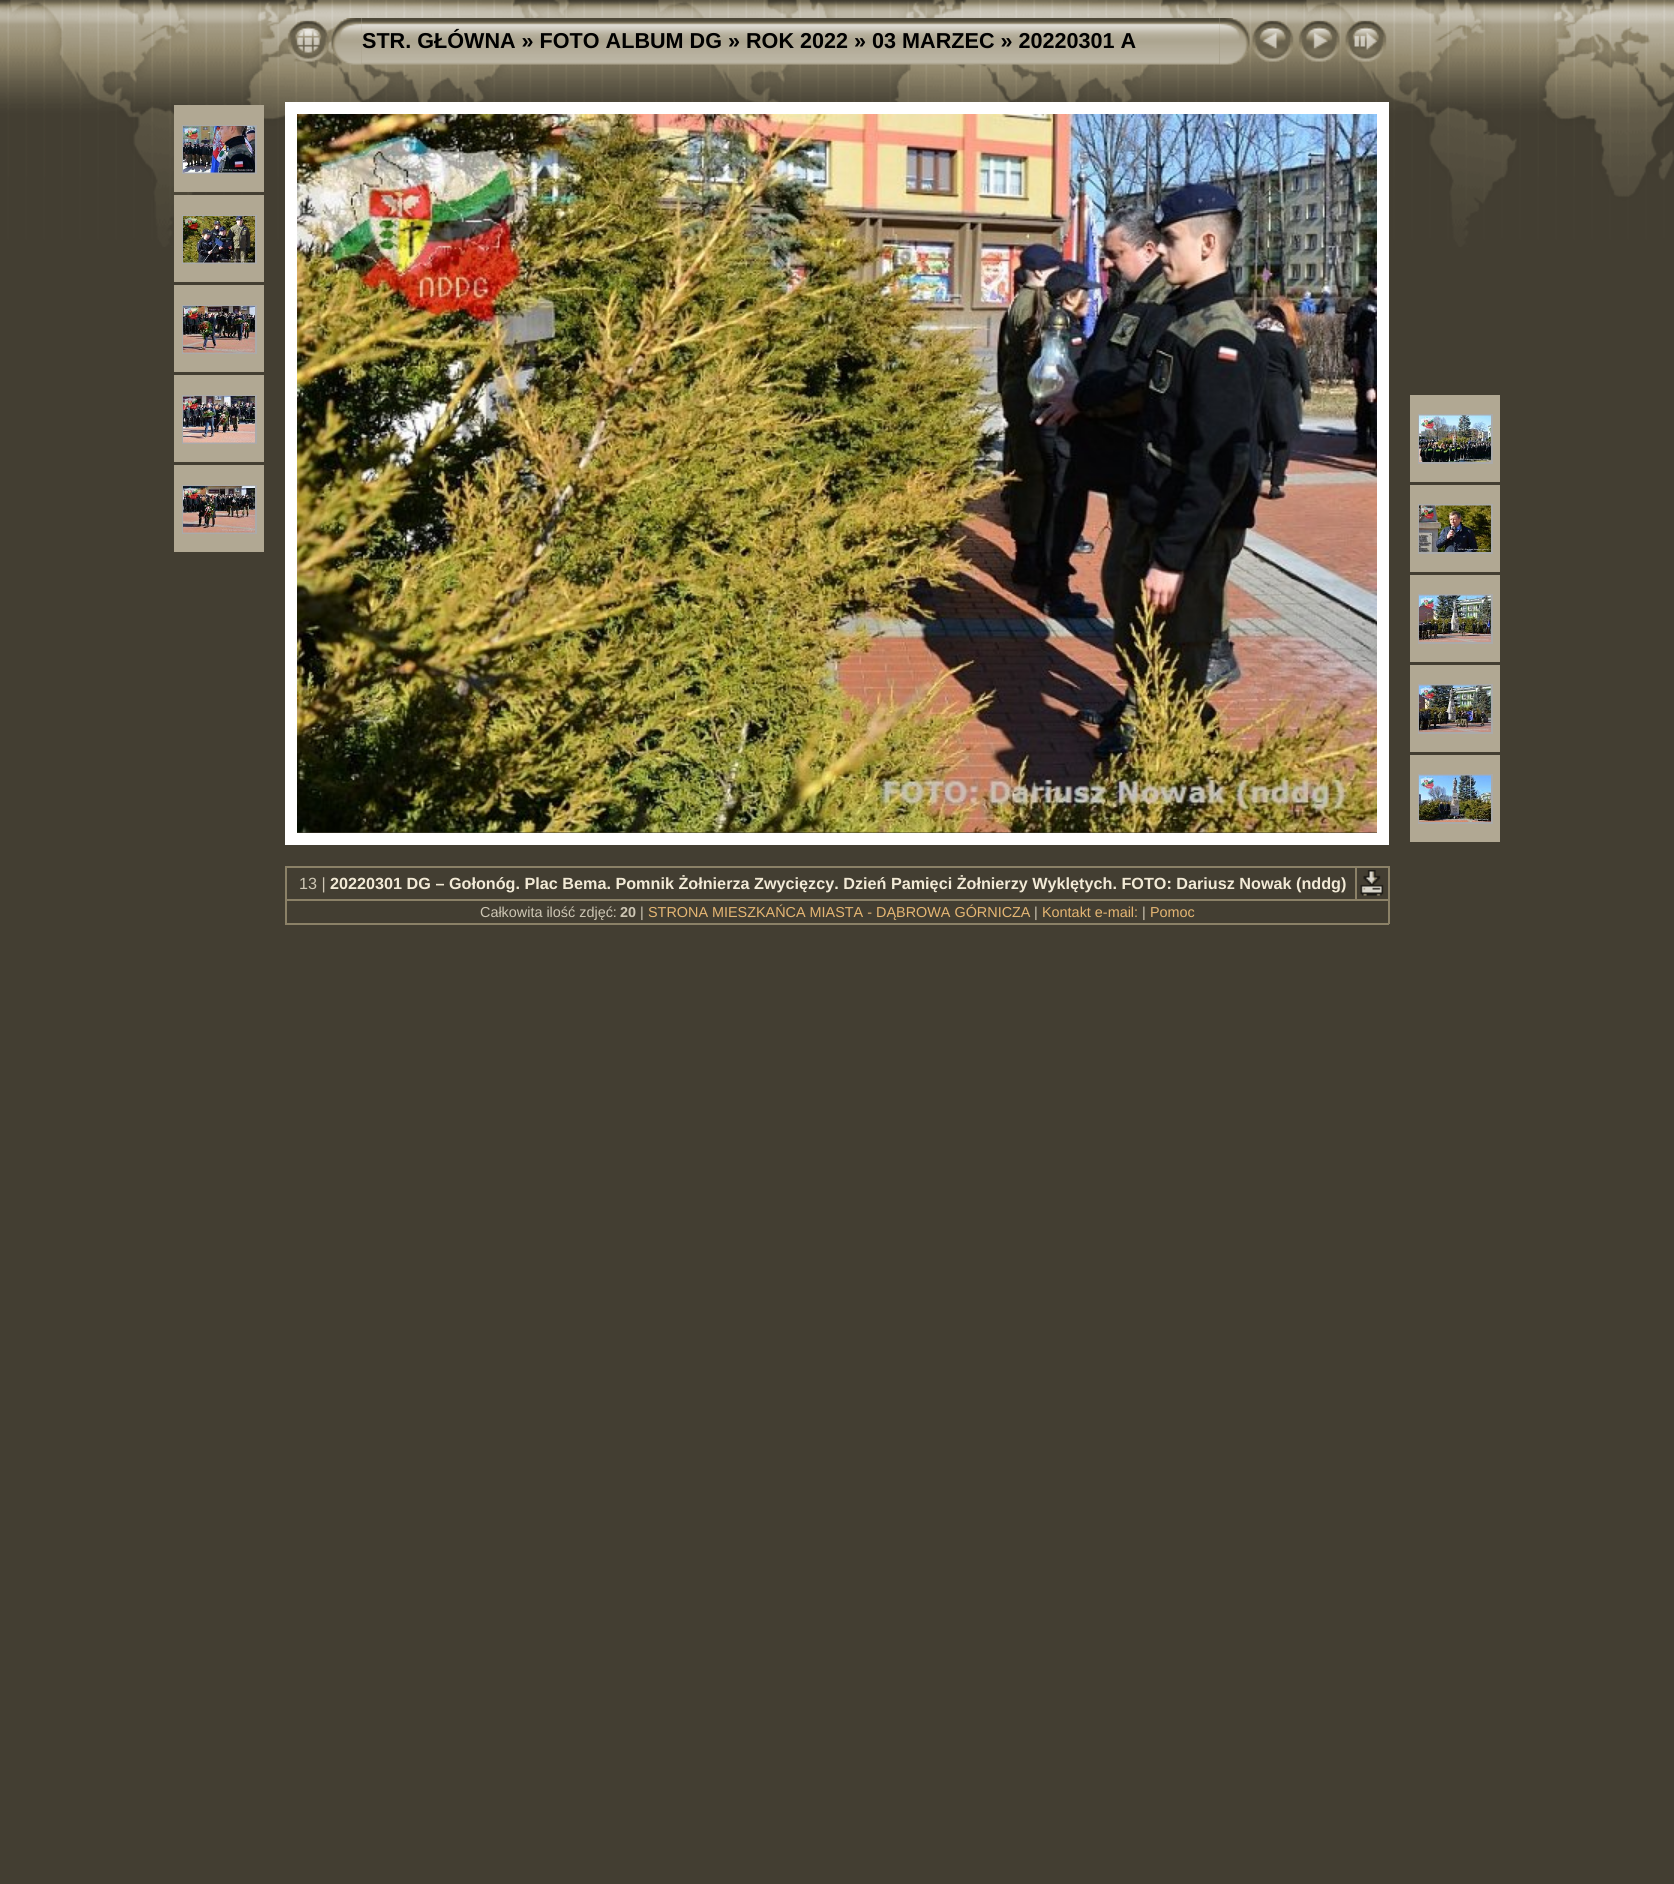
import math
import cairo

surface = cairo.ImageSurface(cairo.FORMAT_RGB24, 1674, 1884)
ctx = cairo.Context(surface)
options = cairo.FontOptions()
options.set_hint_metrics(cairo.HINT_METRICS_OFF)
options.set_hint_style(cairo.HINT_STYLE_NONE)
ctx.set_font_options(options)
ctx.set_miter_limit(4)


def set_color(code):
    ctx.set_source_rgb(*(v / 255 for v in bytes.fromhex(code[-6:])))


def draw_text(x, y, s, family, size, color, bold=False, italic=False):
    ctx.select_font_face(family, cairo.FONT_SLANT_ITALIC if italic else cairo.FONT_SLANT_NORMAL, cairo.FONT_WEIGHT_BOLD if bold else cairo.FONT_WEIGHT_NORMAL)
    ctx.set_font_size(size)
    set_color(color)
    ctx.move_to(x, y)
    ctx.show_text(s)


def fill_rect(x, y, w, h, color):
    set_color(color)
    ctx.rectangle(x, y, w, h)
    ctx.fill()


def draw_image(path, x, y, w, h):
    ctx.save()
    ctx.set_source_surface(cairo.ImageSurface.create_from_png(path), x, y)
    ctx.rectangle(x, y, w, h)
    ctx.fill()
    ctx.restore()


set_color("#433e32")
ctx.paint()
draw_image("assets/img1.png", 0, 0, 1674, 247)
draw_image("assets/img2.png", 287, 20, 42, 42)
draw_image("assets/img4.png", 361, 18, 859, 47)
draw_image("assets/img3.png", 331, 18, 31, 47)
draw_text(362, 48, "STR. GŁÓWNA » FOTO ALBUM DG » ROK 2022 » 03 MARZEC » 20220301 A", "Liberation Sans", 21.6, "#000000", bold=True)
draw_image("assets/img5.png", 1219, 18, 31, 47)
draw_image("assets/img6.png", 1252, 20, 42, 42)
draw_image("assets/img7.png", 1298, 20, 42, 42)
draw_image("assets/img8.png", 1345, 20, 42, 42)
fill_rect(174, 105, 90, 87, "#b1a893")
ctx.rectangle(183, 126, 73, 47)
set_color("#aaaaaa")
ctx.stroke()
draw_image("assets/img9.png", 183, 126, 72, 47)
fill_rect(174, 195, 90, 87, "#b1a893")
ctx.rectangle(183, 216, 73, 47)
set_color("#aaaaaa")
ctx.stroke()
draw_image("assets/img10.png", 183, 216, 72, 47)
fill_rect(174, 285, 90, 87, "#b1a893")
ctx.rectangle(183, 306, 73, 47)
set_color("#aaaaaa")
ctx.stroke()
draw_image("assets/img11.png", 183, 306, 72, 47)
fill_rect(174, 375, 90, 87, "#b1a893")
ctx.rectangle(183, 396, 73, 47)
set_color("#aaaaaa")
ctx.stroke()
draw_image("assets/img12.png", 183, 396, 72, 47)
fill_rect(174, 465, 90, 87, "#b1a893")
ctx.rectangle(183, 486, 73, 47)
set_color("#aaaaaa")
ctx.stroke()
draw_image("assets/img13.png", 183, 486, 72, 47)
ctx.rectangle(291, 108, 1092, 731)
set_color("#ffffff")
ctx.set_line_width(12)
ctx.stroke()
draw_image("assets/img14.png", 297, 114, 1080, 719)
fill_rect(1410, 395, 90, 87, "#b1a893")
ctx.rectangle(1419, 415, 73, 48)
set_color("#aaaaaa")
ctx.set_line_width(2)
ctx.stroke()
draw_image("assets/img15.png", 1419, 415, 72, 47)
fill_rect(1410, 485, 90, 87, "#b1a893")
ctx.rectangle(1419, 505, 73, 48)
set_color("#aaaaaa")
ctx.stroke()
draw_image("assets/img16.png", 1419, 505, 72, 47)
fill_rect(1410, 575, 90, 87, "#b1a893")
ctx.rectangle(1419, 595, 73, 48)
set_color("#aaaaaa")
ctx.stroke()
draw_image("assets/img17.png", 1419, 595, 72, 47)
fill_rect(1410, 665, 90, 87, "#b1a893")
ctx.rectangle(1419, 685, 73, 48)
set_color("#aaaaaa")
ctx.stroke()
draw_image("assets/img18.png", 1419, 685, 72, 47)
fill_rect(1410, 755, 90, 87, "#b1a893")
ctx.rectangle(1419, 775, 73, 48)
set_color("#aaaaaa")
ctx.stroke()
draw_image("assets/img19.png", 1419, 775, 72, 47)
fill_rect(1355, 866, 34, 2, "#8b8167")
fill_rect(285, 899, 1104, 2, "#8b8167")
fill_rect(1355, 866, 2, 34, "#8b8167")
fill_rect(285, 866, 1071, 2, "#8b8167")
fill_rect(1388, 899, 2, 25, "#8b8167")
fill_rect(285, 923, 1104, 2, "#8b8167")
fill_rect(285, 899, 2, 25, "#8b8167")
fill_rect(285, 866, 2, 34, "#8b8167")
draw_text(299, 889, "13 |", "Liberation Sans", 16.2, "#cdc6b4")
draw_text(330, 889, "20220301 DG – Gołonóg. Plac Bema. Pomnik Żołnierza Zwycięzcy. Dzień Pamięci Żołnierzy Wyklętych. FOTO: Dariusz Nowak (nddg)", "Liberation Sans", 16.2, "#f2ead6", bold=True)
fill_rect(1388, 866, 2, 34, "#8b8167")
draw_image("assets/img20.png", 1360, 870, 24, 26)
draw_text(480, 917, "Całkowita ilość zdjęć:", "Liberation Sans", 14.4, "#cdc6b4")
draw_text(620, 917, "20", "Liberation Sans", 14.4, "#cdc6b4", bold=True)
draw_text(640, 917, "|", "Liberation Sans", 14.4, "#cdc6b4")
draw_text(648, 917, "STRONA MIESZKAŃCA MIASTA - DĄBROWA GÓRNICZA", "Liberation Sans", 14.4, "#e5b673")
draw_text(1034, 917, "|", "Liberation Sans", 14.4, "#cdc6b4")
draw_text(1042, 917, "Kontakt e-mail:", "Liberation Sans", 14.4, "#e5b673")
draw_text(1142, 917, "|", "Liberation Sans", 14.4, "#cdc6b4")
draw_text(1150, 917, "Pomoc", "Liberation Sans", 14.4, "#e5b673")
surface.write_to_png("output.png")
